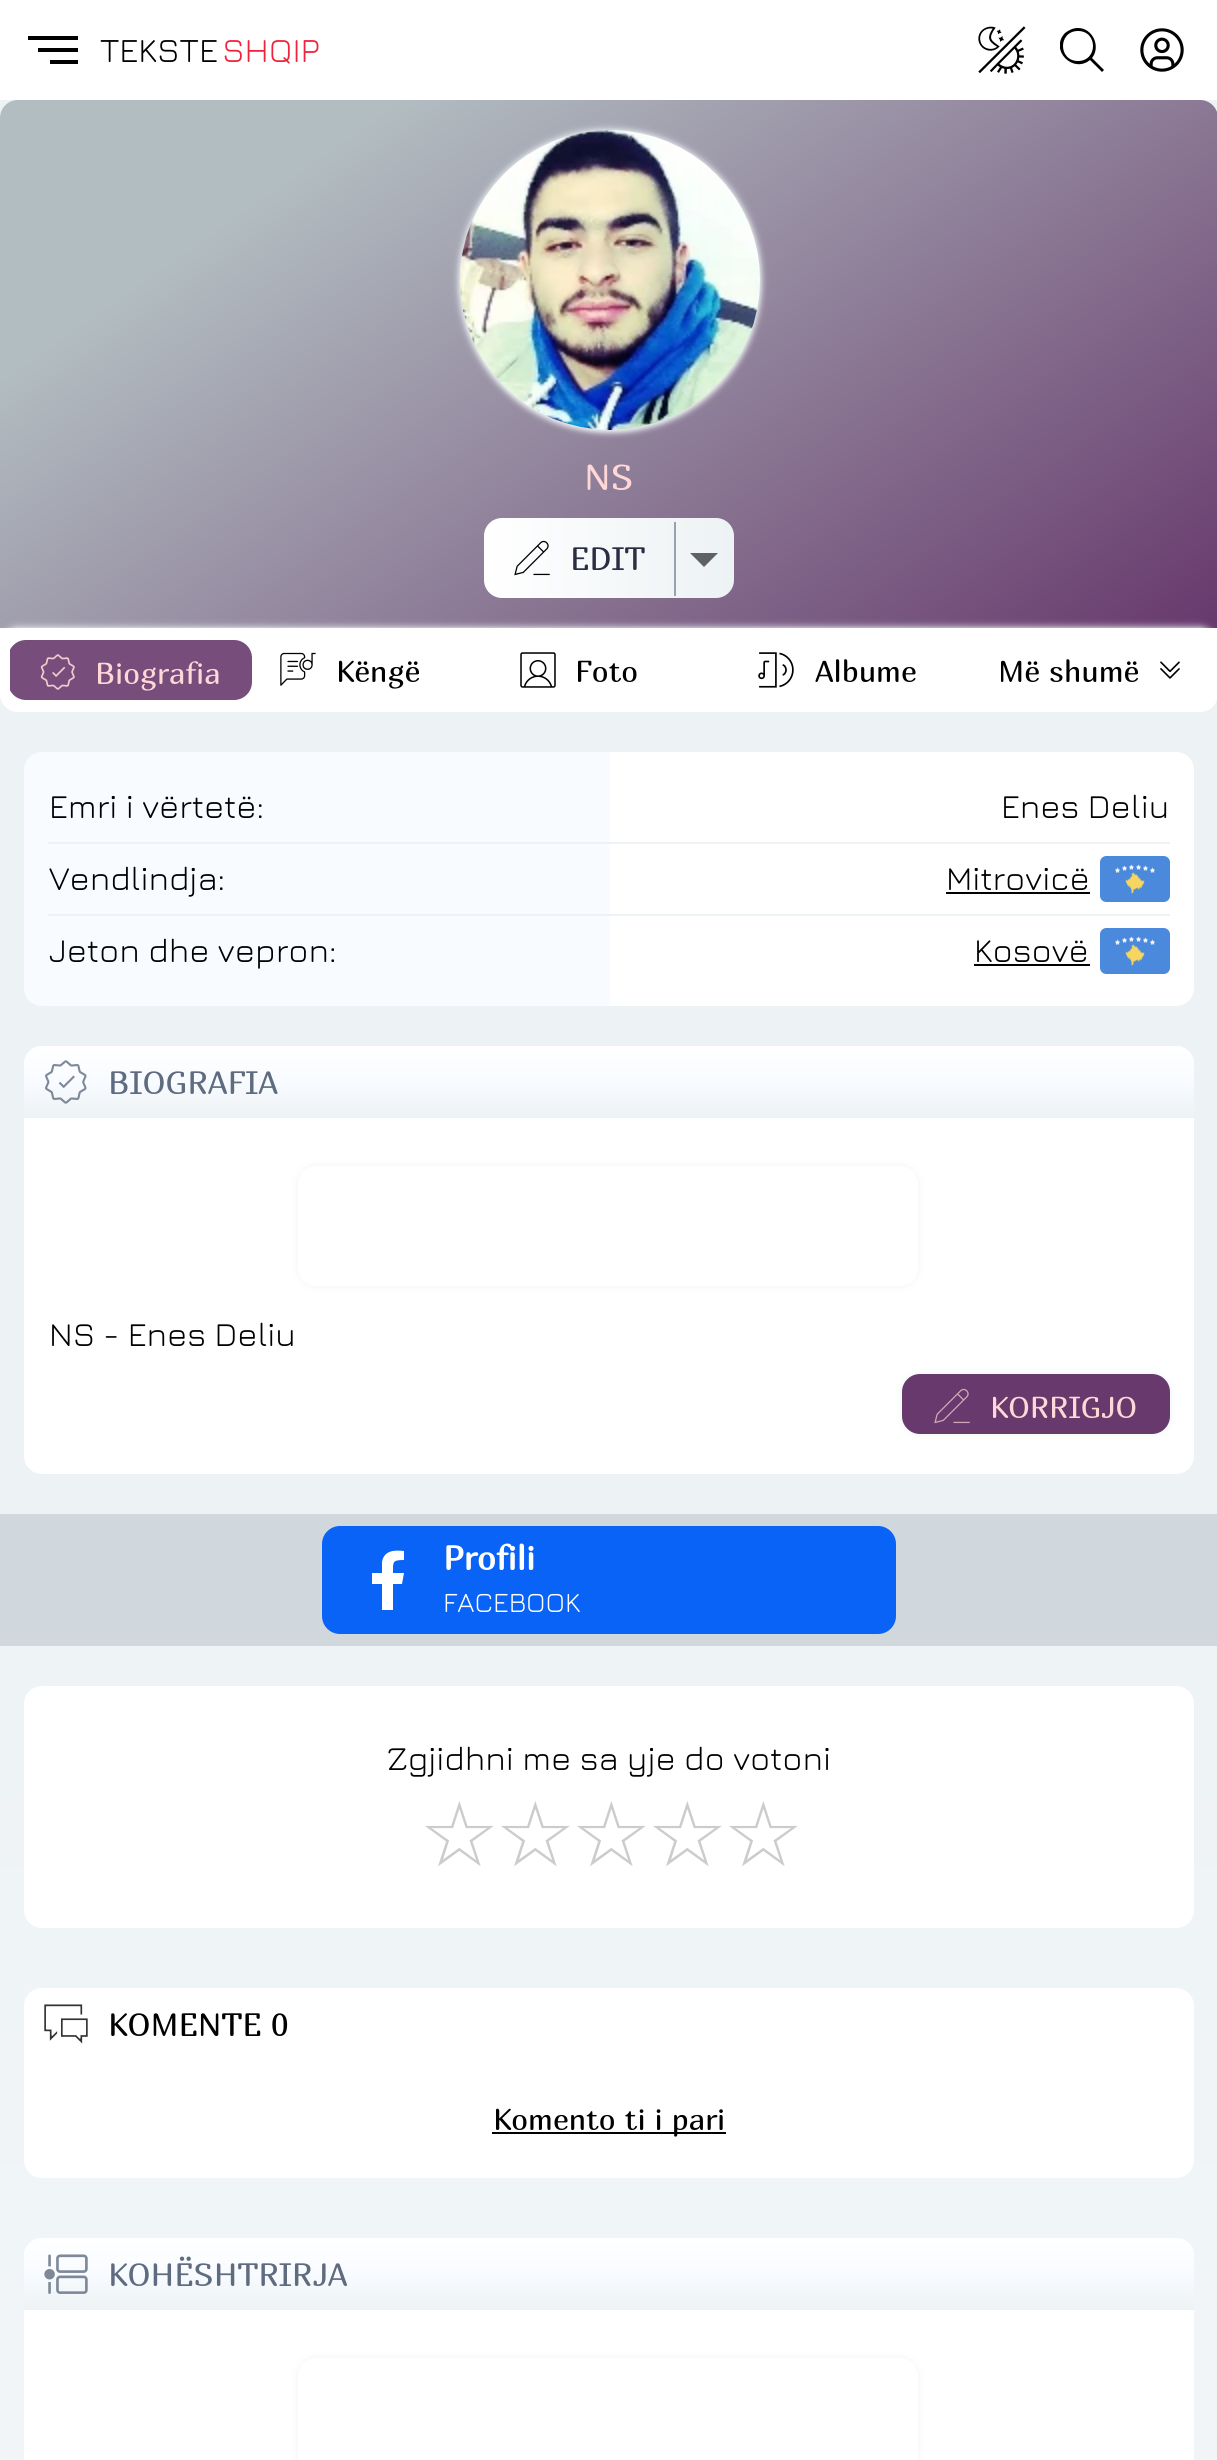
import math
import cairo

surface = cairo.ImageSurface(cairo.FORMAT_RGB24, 1217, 2460)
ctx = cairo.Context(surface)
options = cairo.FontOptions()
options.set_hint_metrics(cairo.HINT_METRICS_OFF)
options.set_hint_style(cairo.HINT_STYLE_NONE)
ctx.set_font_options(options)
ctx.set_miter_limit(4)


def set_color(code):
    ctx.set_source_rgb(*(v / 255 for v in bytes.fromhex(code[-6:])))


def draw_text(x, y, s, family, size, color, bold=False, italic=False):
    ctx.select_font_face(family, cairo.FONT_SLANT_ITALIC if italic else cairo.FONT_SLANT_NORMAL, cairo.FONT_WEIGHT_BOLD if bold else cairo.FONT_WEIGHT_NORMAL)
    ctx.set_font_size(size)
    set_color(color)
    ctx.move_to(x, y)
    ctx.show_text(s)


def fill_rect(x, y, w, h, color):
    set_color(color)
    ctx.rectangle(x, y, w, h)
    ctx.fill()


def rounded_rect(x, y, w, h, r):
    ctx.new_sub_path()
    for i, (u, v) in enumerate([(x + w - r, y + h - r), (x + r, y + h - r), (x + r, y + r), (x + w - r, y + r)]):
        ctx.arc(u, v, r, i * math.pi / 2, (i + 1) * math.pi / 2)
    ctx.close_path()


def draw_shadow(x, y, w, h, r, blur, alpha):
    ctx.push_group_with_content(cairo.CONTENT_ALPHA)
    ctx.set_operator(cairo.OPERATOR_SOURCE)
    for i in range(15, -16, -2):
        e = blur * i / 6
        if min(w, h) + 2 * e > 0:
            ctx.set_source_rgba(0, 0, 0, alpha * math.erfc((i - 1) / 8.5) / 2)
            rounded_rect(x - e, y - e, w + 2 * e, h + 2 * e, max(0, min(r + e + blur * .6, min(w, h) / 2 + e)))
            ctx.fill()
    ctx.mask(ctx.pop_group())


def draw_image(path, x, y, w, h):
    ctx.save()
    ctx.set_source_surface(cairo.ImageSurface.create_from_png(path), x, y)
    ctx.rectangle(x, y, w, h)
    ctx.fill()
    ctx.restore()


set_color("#ffffff")
ctx.paint()
fill_rect(28, 36, 50, 4, "#000000")
fill_rect(38, 48, 40, 4, "#000000")
fill_rect(50, 60, 28, 4, "#000000")
draw_text(100, 62, "TEKSTE", "Jura Light", 34, "#000000")
draw_text(222, 62, "SHQIP", "Jura Light", 34, "#ef233c")
draw_image("assets/img1.png", 978, 26, 48, 48)
ctx.save()
ctx.rectangle(1060, 28, 44, 44)
ctx.clip()
set_color("#000000")
ctx.new_path()
ctx.move_to(1078, 28)
ctx.curve_to(1073, 28, 1069, 30, 1065, 33)
ctx.curve_to(1049, 50, 1073, 74, 1090, 60)
ctx.line_to(1102, 72)
ctx.line_to(1104, 70)
ctx.line_to(1092, 58)
ctx.curve_to(1101, 47, 1093, 28, 1078, 28)
ctx.close_path()
ctx.move_to(1078, 31)
ctx.curve_to(1098, 31, 1098, 61, 1078, 61)
ctx.curve_to(1058, 61, 1058, 31, 1078, 31)
ctx.close_path()
ctx.fill()
ctx.restore()
draw_image("assets/img2.png", 1140, 28, 44, 44)
gradient = cairo.LinearGradient(609, 100, 609, 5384)
gradient.add_color_stop_rgba(0.25, 0.929, 0.949, 0.957, 1)
gradient.add_color_stop_rgba(0.75, 0.973, 0.984, 1, 1)
gradient.add_color_stop_rgba(1, 0.973, 0.984, 1, 1)
ctx.set_source(gradient)
ctx.rectangle(0, 100, 1217, 2360)
ctx.fill()
gradient = cairo.LinearGradient(285, -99, 933, 827)
gradient.add_color_stop_rgba(0.2, 0.698, 0.741, 0.757, 1)
gradient.add_color_stop_rgba(1, 0.404, 0.224, 0.424, 1)
ctx.set_source(gradient)
ctx.new_path()
ctx.move_to(18, 100)
ctx.line_to(1200, 100)
ctx.curve_to(1210, 100, 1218, 108, 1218, 118)
ctx.line_to(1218, 628)
ctx.line_to(0, 628)
ctx.line_to(0, 118)
ctx.curve_to(0, 108, 8, 100, 18, 100)
ctx.close_path()
ctx.fill()
set_color("#edf2f4")
draw_shadow(460, 130, 300, 300, 150, 4, 1)
draw_shadow(460, 132, 300, 300, 150, 3, 1)
draw_image("assets/img3.png", 460, 130, 300, 300)
draw_text(584, 490, "NS", "Marmelad", 36, "#ffd7d7")
gradient = cairo.LinearGradient(484, 558, 734, 558)
gradient.add_color_stop_rgba(0, 1, 1, 1, 1)
gradient.add_color_stop_rgba(1, 0.929, 0.949, 0.957, 1)
ctx.set_source(gradient)
rounded_rect(484, 518, 250, 80, 18)
ctx.fill()
draw_image("assets/img4.png", 514, 540, 36, 36)
draw_text(570, 570, "EDIT", "Marmelad", 32, "#2b2d42")
fill_rect(674, 522, 2, 74, "#99a2af")
set_color("#606162")
ctx.new_path()
ctx.move_to(690, 553)
ctx.line_to(704, 567)
ctx.line_to(718, 553)
ctx.close_path()
ctx.fill()
set_color("#edf2f4")
draw_shadow(0, 628, 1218, 84, 18, 4, 1)
draw_shadow(0, 630, 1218, 84, 18, 3, 1)
set_color("#ffffff")
ctx.new_path()
ctx.move_to(0, 628)
ctx.line_to(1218, 628)
ctx.line_to(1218, 694)
ctx.curve_to(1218, 704, 1210, 712, 1200, 712)
ctx.line_to(18, 712)
ctx.curve_to(8, 712, 0, 704, 0, 694)
ctx.close_path()
ctx.fill()
ctx.save()
ctx.rectangle(10, 630, 958, 80)
ctx.clip()
set_color("#764d7b")
rounded_rect(9, 641, 242, 58, 17)
ctx.fill_preserve()
ctx.stroke()
ctx.restore()
draw_image("assets/img5.png", 40, 654, 35, 36)
draw_text(95, 684, "Biografia", "Marmelad", 30, "#ffd7d7")
draw_image("assets/img6.png", 280, 652, 36, 34)
draw_text(336, 682, "Këngë", "Marmelad", 30, "#000000")
draw_image("assets/img7.png", 520, 652, 36, 36)
draw_text(575, 682, "Foto", "Marmelad", 30, "#000000")
draw_image("assets/img8.png", 758, 652, 36, 36)
draw_text(815, 682, "Albume", "Marmelad", 30, "#000000")
draw_text(998, 682, "Më shumë", "Marmelad", 30, "#000000")
draw_image("assets/img9.png", 1160, 661, 20, 18)
set_color("#f8fbff")
ctx.new_path()
ctx.move_to(42, 752)
ctx.line_to(610, 752)
ctx.line_to(610, 1006)
ctx.line_to(42, 1006)
ctx.curve_to(32, 1006, 24, 998, 24, 988)
ctx.line_to(24, 770)
ctx.curve_to(24, 760, 32, 752, 42, 752)
ctx.close_path()
ctx.fill()
set_color("#ffffff")
ctx.new_path()
ctx.move_to(610, 752)
ctx.line_to(1176, 752)
ctx.curve_to(1186, 752, 1194, 760, 1194, 770)
ctx.line_to(1194, 988)
ctx.curve_to(1194, 998, 1186, 1006, 1176, 1006)
ctx.line_to(610, 1006)
ctx.close_path()
ctx.fill()
fill_rect(48, 842, 1122, 2, "#edf2f4")
draw_text(49, 818, "Emri i vërtetë:", "Jura Light", 33.6, "#000000")
draw_text(1001, 818, "Enes Deliu", "Jura Light", 33.6, "#000000")
fill_rect(48, 914, 1122, 2, "#edf2f4")
draw_text(49, 890, "Vendlindja:", "Jura Light", 33.6, "#000000")
draw_text(946, 890, "Mitrovicë", "Jura Light", 33.6, "#000000")
fill_rect(946, 892, 144, 2, "#000000")
draw_image("assets/img10.png", 1100, 856, 70, 46)
draw_text(49, 962, "Jeton dhe vepron:", "Jura Light", 33.6, "#000000")
draw_text(974, 962, "Kosovë", "Jura Light", 33.6, "#000000")
fill_rect(974, 964, 116, 2, "#000000")
draw_image("assets/img11.png", 1100, 928, 70, 46)
set_color("#ffffff")
rounded_rect(24, 1046, 1170, 428, 18)
ctx.fill()
gradient = cairo.LinearGradient(609, 1046, 609, 1118)
gradient.add_color_stop_rgba(0, 1, 1, 1, 1)
gradient.add_color_stop_rgba(0.5, 0.973, 0.984, 1, 1)
gradient.add_color_stop_rgba(1, 0.929, 0.949, 0.957, 1)
ctx.set_source(gradient)
ctx.new_path()
ctx.move_to(42, 1046)
ctx.line_to(1176, 1046)
ctx.curve_to(1186, 1046, 1194, 1054, 1194, 1064)
ctx.line_to(1194, 1118)
ctx.line_to(24, 1118)
ctx.line_to(24, 1064)
ctx.curve_to(24, 1054, 32, 1046, 42, 1046)
ctx.close_path()
ctx.fill()
draw_image("assets/img12.png", 45, 1060, 42, 44)
draw_text(108, 1094, "BIOGRAFIA", "Marmelad", 32, "#5f6b7f")
set_color("#edf2f4")
draw_shadow(298, 1166, 620, 120, 18, 4, 1)
set_color("#ffffff")
rounded_rect(298, 1166, 620, 120, 18)
ctx.fill()
draw_text(49, 1346, "NS - Enes Deliu", "Jura Light", 33.6, "#000000")
set_color("#edf2f4")
draw_shadow(902, 1374, 268, 60, 18, 4, 1)
set_color("#67396c")
rounded_rect(903, 1375, 266, 58, 17)
ctx.fill_preserve()
ctx.stroke()
draw_image("assets/img13.png", 934, 1388, 36, 36)
draw_text(990, 1418, "KORRIGJO", "Marmelad", 30, "#ffd7d7")
fill_rect(0, 1514, 1217, 132, "#d1d8dd")
set_color("#0963f7")
rounded_rect(322, 1526, 574, 108, 18)
ctx.fill()
set_color("#ffffff")
ctx.new_path()
ctx.move_to(382, 1610)
ctx.line_to(382, 1584)
ctx.line_to(372, 1584)
ctx.line_to(372, 1573)
ctx.line_to(382, 1573)
ctx.line_to(382, 1562)
ctx.curve_to(384, 1550, 395, 1550, 404, 1551)
ctx.line_to(404, 1560)
ctx.curve_to(392, 1560, 393, 1562, 393, 1573)
ctx.line_to(404, 1573)
ctx.line_to(402, 1584)
ctx.line_to(393, 1584)
ctx.line_to(393, 1610)
ctx.fill()
draw_text(443, 1570, "Profili", "Marmelad", 33.6, "#ffffff", bold=True)
draw_text(443, 1612, "FACEBOOK", "Jura Light", 28, "#ffffff")
rounded_rect(24, 1686, 1170, 242, 18)
ctx.fill()
draw_text(387, 1770, "Zgjidhni me sa yje do votoni", "Jura Light", 33.6, "#000000")
draw_text(419, 1866, "☆", "DejaVu Sans", 90, "#cccccc")
draw_text(495, 1866, "☆", "DejaVu Sans", 90, "#cccccc")
draw_text(571, 1866, "☆", "DejaVu Sans", 90, "#cccccc")
draw_text(647, 1866, "☆", "DejaVu Sans", 90, "#cccccc")
draw_text(723, 1866, "☆", "DejaVu Sans", 90, "#cccccc")
set_color("#ffffff")
rounded_rect(24, 1988, 1170, 190, 18)
ctx.fill()
draw_image("assets/img14.png", 44, 2004, 44, 40)
draw_text(108, 2036, "KOMENTE 0", "Marmelad", 32, "#000000")
fill_rect(492, 2132, 234, 2, "#000000")
draw_text(493, 2130, "Komento ti i pari", "Marmelad", 30, "#000000")
set_color("#ffffff")
rounded_rect(24, 2238, 1170, 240, 18)
ctx.fill()
gradient = cairo.LinearGradient(609, 2238, 609, 2310)
gradient.add_color_stop_rgba(0, 1, 1, 1, 1)
gradient.add_color_stop_rgba(0.5, 0.973, 0.984, 1, 1)
gradient.add_color_stop_rgba(1, 0.929, 0.949, 0.957, 1)
ctx.set_source(gradient)
ctx.new_path()
ctx.move_to(42, 2238)
ctx.line_to(1176, 2238)
ctx.curve_to(1186, 2238, 1194, 2246, 1194, 2256)
ctx.line_to(1194, 2310)
ctx.line_to(24, 2310)
ctx.line_to(24, 2256)
ctx.curve_to(24, 2246, 32, 2238, 42, 2238)
ctx.close_path()
ctx.fill()
draw_image("assets/img15.png", 44, 2254, 44, 40)
draw_text(108, 2286, "KOHËSHTRIRJA", "Marmelad", 32, "#5f6b7f")
set_color("#edf2f4")
draw_shadow(298, 2358, 620, 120, 18, 4, 1)
set_color("#ffffff")
rounded_rect(298, 2358, 620, 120, 18)
ctx.fill()
surface.write_to_png("output.png")
